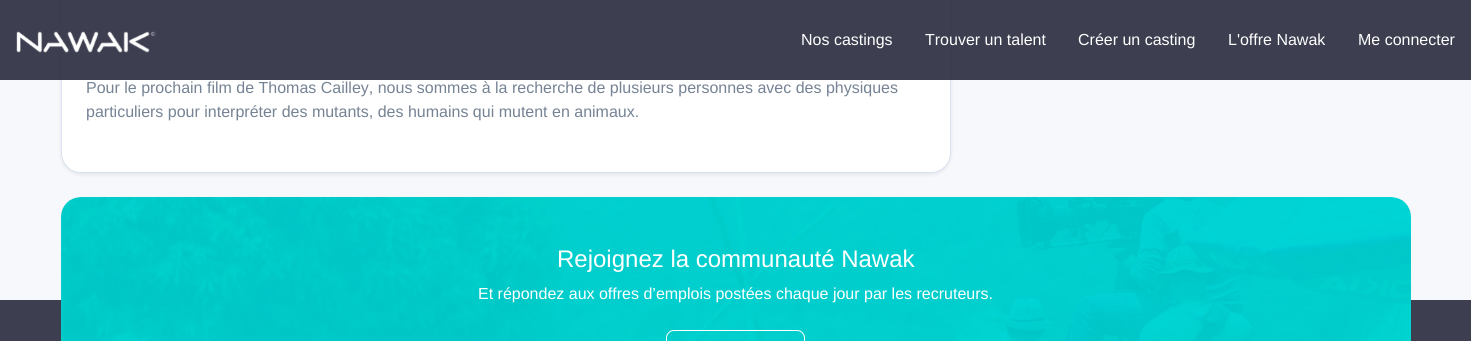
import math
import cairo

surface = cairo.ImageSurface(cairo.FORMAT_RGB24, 1471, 341)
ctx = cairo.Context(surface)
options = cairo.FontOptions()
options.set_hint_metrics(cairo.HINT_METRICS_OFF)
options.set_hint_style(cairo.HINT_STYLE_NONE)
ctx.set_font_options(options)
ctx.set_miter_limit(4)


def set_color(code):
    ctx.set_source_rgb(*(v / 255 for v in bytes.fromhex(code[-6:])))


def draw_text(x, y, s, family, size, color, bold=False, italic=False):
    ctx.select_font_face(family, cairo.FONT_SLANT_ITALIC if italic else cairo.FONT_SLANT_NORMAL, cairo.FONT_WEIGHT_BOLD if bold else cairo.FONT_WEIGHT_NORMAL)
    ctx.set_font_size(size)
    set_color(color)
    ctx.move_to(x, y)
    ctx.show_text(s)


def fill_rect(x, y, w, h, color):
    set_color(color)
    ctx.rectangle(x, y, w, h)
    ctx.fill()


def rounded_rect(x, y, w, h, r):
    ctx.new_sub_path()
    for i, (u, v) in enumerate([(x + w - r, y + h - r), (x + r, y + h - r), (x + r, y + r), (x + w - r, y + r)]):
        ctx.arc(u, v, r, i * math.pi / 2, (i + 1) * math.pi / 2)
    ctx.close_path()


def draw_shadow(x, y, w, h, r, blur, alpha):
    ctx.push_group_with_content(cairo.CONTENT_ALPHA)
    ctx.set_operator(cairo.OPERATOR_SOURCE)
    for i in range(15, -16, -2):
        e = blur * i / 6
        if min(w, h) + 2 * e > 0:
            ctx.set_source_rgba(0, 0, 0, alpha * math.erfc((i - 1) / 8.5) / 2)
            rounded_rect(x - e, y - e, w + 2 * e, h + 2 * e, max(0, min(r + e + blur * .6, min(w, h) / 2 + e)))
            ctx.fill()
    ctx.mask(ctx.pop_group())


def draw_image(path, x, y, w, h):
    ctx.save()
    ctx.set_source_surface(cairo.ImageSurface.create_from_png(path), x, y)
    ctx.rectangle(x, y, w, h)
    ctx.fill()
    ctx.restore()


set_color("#3d3e50")
ctx.paint()
fill_rect(0, 80, 1471, 220, "#f7f8fc")
set_color("#000000")
draw_shadow(61, -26, 890, 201, 20, 2, 0.07)
set_color("#ffffff")
rounded_rect(61.5, -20.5, 889, 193, 19.5)
ctx.fill_preserve()
set_color("#d9e2f1")
ctx.set_line_width(1)
ctx.stroke()
fill_rect(61, 0, 890, 80, "#3d3e50")
draw_image("assets/img1.png", 16, 31, 140, 22)
draw_text(801, 45, "Nos castings", "Liberation Sans", 16, "#ffffff")
draw_text(925, 45, "Trouver un talent", "Liberation Sans", 16, "#ffffff")
draw_text(1078, 45, "Créer un casting", "Liberation Sans", 16, "#ffffff")
draw_text(1228, 45, "L'offre Nawak", "Liberation Sans", 16, "#ffffff")
draw_text(1358, 45, "Me connecter", "Liberation Sans", 16, "#ffffff")
draw_text(86, 93, "Pour le prochain film de Thomas Cailley, nous sommes à la recherche de plusieurs personnes avec des physiques", "Liberation Sans", 16, "#758394")
draw_text(86, 117, "particuliers pour interpréter des mutants, des humains qui mutent en animaux.", "Liberation Sans", 16, "#758394")
draw_image("assets/img2.png", 61, 197, 1350, 144)
draw_text(557, 267, "Rejoignez la communauté Nawak", "Liberation Sans", 24, "#ffffff")
draw_text(478, 299, "Et répondez aux offres d’emplois postées chaque jour par les recruteurs.", "Liberation Sans", 16, "#ffffff")
rounded_rect(666.5, 330.5, 138, 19, 7.5)
ctx.stroke()
surface.write_to_png("output.png")
